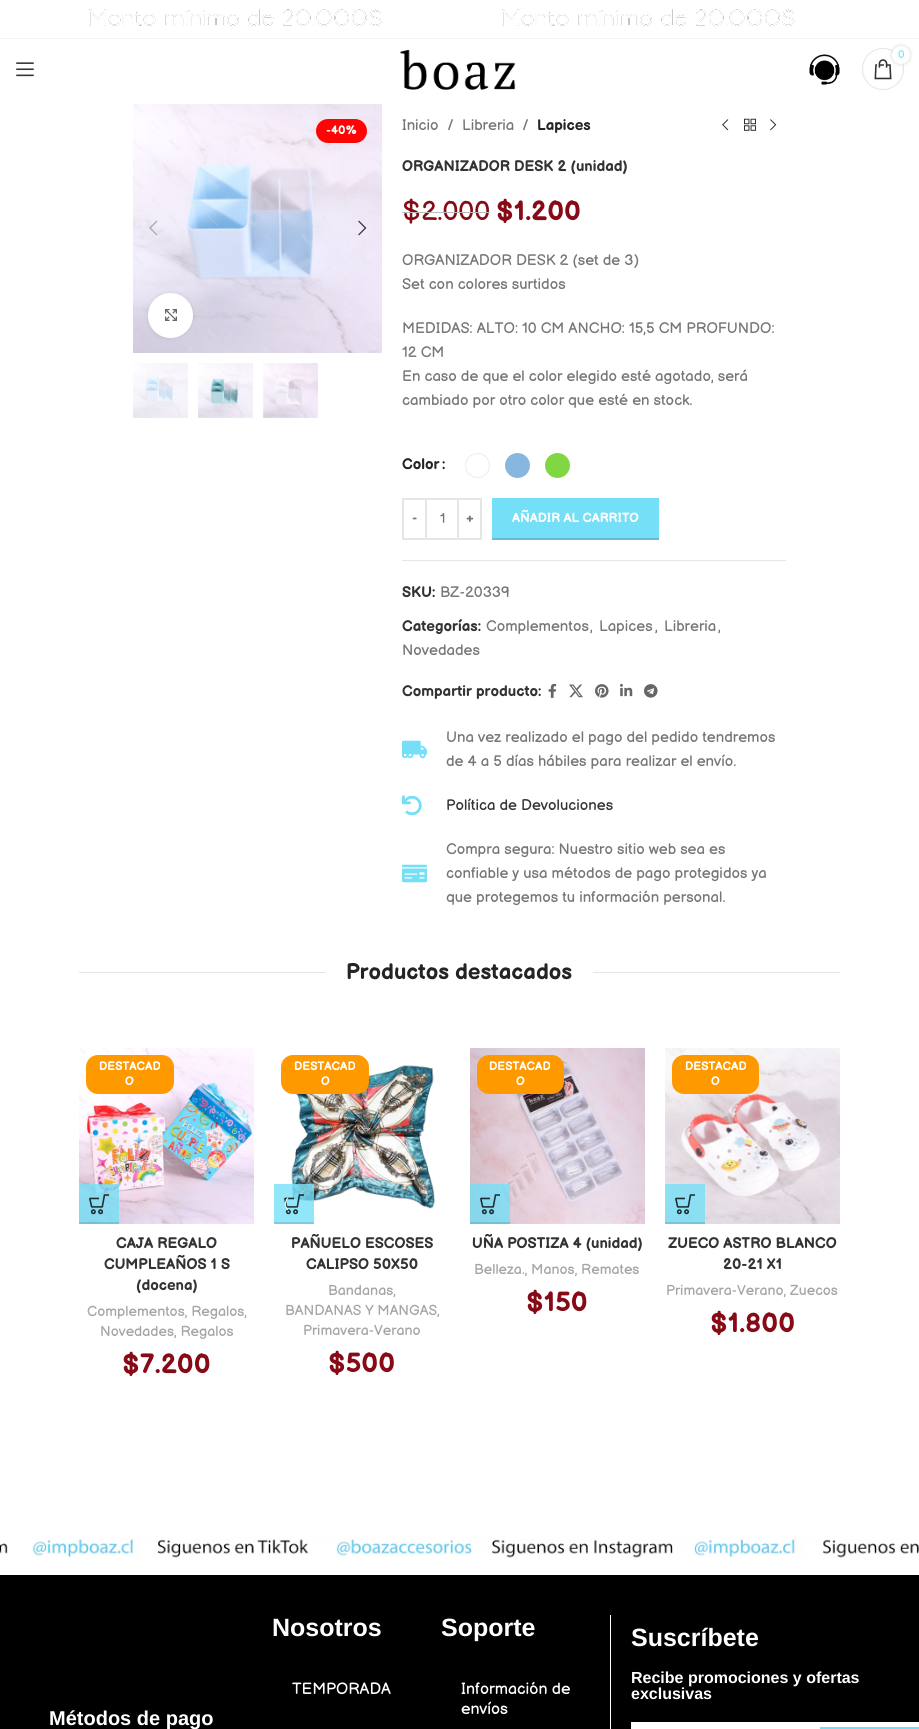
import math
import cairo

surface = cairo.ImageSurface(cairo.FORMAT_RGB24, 919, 1729)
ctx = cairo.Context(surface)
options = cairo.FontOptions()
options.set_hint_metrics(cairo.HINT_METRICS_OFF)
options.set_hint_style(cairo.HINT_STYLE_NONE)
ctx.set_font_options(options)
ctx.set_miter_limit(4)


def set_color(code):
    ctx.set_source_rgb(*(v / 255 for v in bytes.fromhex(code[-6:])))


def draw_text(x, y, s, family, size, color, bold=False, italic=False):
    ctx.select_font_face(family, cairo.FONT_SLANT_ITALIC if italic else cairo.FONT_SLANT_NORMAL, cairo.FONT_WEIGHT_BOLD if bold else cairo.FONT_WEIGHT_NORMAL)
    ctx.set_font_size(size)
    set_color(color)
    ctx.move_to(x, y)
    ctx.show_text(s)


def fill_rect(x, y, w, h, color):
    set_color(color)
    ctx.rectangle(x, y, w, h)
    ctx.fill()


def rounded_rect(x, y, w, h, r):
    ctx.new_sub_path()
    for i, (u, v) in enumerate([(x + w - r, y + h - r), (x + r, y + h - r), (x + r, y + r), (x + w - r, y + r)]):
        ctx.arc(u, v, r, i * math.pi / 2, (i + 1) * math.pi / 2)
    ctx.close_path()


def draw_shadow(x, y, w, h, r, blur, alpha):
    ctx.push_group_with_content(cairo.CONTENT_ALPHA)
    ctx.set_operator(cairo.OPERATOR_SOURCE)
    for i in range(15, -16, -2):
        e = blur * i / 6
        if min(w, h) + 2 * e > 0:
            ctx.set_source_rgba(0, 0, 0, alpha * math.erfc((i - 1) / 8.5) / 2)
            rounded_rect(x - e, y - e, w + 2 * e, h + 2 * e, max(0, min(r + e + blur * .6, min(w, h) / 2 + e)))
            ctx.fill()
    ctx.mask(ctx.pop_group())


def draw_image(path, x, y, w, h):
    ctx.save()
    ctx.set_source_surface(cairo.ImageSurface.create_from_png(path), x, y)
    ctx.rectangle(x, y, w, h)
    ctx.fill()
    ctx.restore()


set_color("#ffffff")
ctx.paint()
fill_rect(0, 38, 919, 1, "#f4f2f7")
draw_image("assets/img1.png", 89, 9, 706, 17)
draw_image("assets/img2.png", 400, 50, 116, 40)
draw_image("assets/img3.png", 809, 54, 31, 31)
ctx.arc(883, 69, 20.5, 0, 2 * math.pi)
set_color("#e4e4e4")
ctx.set_line_width(1)
ctx.stroke()
draw_image("assets/img4.png", 874, 59, 18, 21)
set_color("#000000")
draw_shadow(892, 46, 18, 18, 9, 2, 0.17)
set_color("#ffffff")
ctx.arc(901, 55, 9, 0, 2 * math.pi)
ctx.fill()
draw_text(898, 58, "0", "Balsamiq Sans", 11, "#75dff7")
draw_image("assets/img5.png", 16, 62, 18, 15)
draw_image("assets/img6.png", 133, 104, 249, 249)
set_color("#ff0305")
rounded_rect(316, 119, 51, 24, 12)
ctx.fill()
draw_text(326, 134, "-40%", "Balsamiq Sans", 12, "#ffffff", bold=True)
draw_image("assets/img7.png", 149, 220, 9, 16)
draw_image("assets/img8.png", 358, 220, 9, 16)
set_color("#000000")
draw_shadow(148, 293, 45, 45, 22.5, 2.5, 0.08)
set_color("#ffffff")
ctx.arc(170.5, 315.5, 22.5, 0, 2 * math.pi)
ctx.fill()
draw_image("assets/img9.png", 165, 309, 12, 12)
draw_image("assets/img10.png", 133, 363, 55, 55)
draw_image("assets/img11.png", 198, 363, 55, 55)
draw_image("assets/img12.png", 262, 363, 56, 55)
draw_text(402, 130, "Inicio", "Balsamiq Sans", 15, "#767676")
draw_text(447, 130, "/", "Balsamiq Sans", 15, "#767676")
draw_text(462, 130, "Libreria", "Balsamiq Sans", 15, "#767676")
draw_text(522, 130, "/", "Balsamiq Sans", 15, "#767676")
draw_text(537, 130, "Lapices", "Balsamiq Sans", 15, "#242424", bold=True)
draw_image("assets/img13.png", 722, 119, 7, 12)
draw_image("assets/img14.png", 744, 118, 12, 13)
draw_image("assets/img15.png", 770, 119, 7, 12)
draw_text(402, 171, "ORGANIZADOR DESK 2 (unidad)", "Balsamiq Sans", 15, "#333333", bold=True)
draw_text(402, 220, "$2.000", "Balsamiq Sans", 27, "#860b17")
fill_rect(402, 212, 88, 1, "#bbbbbb")
draw_text(496, 220, "$1.200", "Balsamiq Sans", 27, "#860b17", bold=True)
draw_text(402, 265, "ORGANIZADOR DESK 2 (set de 3)", "Balsamiq Sans", 15, "#767676")
draw_text(402, 289, "Set con colores surtidos", "Balsamiq Sans", 15, "#767676")
draw_text(402, 333, "MEDIDAS: ALTO: 10 CM ANCHO: 15,5 CM PROFUNDO:", "Balsamiq Sans", 15, "#767676")
draw_text(402, 357, "12 CM", "Balsamiq Sans", 15, "#767676")
draw_text(402, 381, "En caso de que el color elegido esté agotado, será", "Balsamiq Sans", 15, "#767676")
draw_text(402, 405, "cambiado por otro color que esté en stock.", "Balsamiq Sans", 15, "#767676")
draw_text(402, 469, "Color", "Balsamiq Sans", 15, "#242424", bold=True)
draw_text(442, 469, ":", "Balsamiq Sans", 15, "#242424", bold=True)
ctx.new_path()
ctx.arc(477.5, 465.5, 12, 0, 2 * math.pi)
set_color("#ececec")
ctx.stroke()
set_color("#87b7e1")
ctx.arc(517.5, 465.5, 12.5, 0, 2 * math.pi)
ctx.fill()
set_color("#81d742")
ctx.arc(557.5, 465.5, 12.5, 0, 2 * math.pi)
ctx.fill()
ctx.rectangle(403, 499, 23, 40)
set_color("#e6e6e6")
ctx.set_line_width(2)
ctx.stroke()
draw_text(412, 522, "-", "Balsamiq Sans", 13, "#767676", bold=True)
fill_rect(427, 498, 30, 2, "#e6e6e6")
fill_rect(427, 538, 30, 2, "#e6e6e6")
draw_text(440, 523, "1", "Balsamiq Sans", 14, "#767676")
ctx.rectangle(458, 499, 23, 40)
set_color("#e6e6e6")
ctx.stroke()
draw_text(465, 522, "+", "Balsamiq Sans", 13, "#767676", bold=True)
fill_rect(492, 498, 167, 40, "#75dff7")
fill_rect(492, 538, 167, 2, "#63bed2")
draw_text(512, 522, "AÑADIR AL CARRITO", "Balsamiq Sans", 13, "#ffffff", bold=True)
fill_rect(402, 560, 384, 1, "#e7e7e7")
draw_text(402, 597, "SKU:", "Balsamiq Sans", 15, "#333333", bold=True)
draw_text(440, 597, "BZ-20339", "Balsamiq Sans", 15, "#767676")
draw_text(402, 631, "Categorías:", "Balsamiq Sans", 15, "#333333", bold=True)
draw_text(486, 631, "Complementos", "Balsamiq Sans", 15, "#767676")
draw_text(590, 631, ",", "Balsamiq Sans", 15, "#767676")
draw_text(599, 631, "Lapices", "Balsamiq Sans", 15, "#767676")
draw_text(655, 631, ",", "Balsamiq Sans", 15, "#767676")
draw_text(664, 631, "Libreria", "Balsamiq Sans", 15, "#767676")
draw_text(718, 631, ",", "Balsamiq Sans", 15, "#767676")
draw_text(402, 655, "Novedades", "Balsamiq Sans", 15, "#767676")
draw_text(402, 696, "Compartir producto:", "Balsamiq Sans", 15, "#333333", bold=True)
draw_image("assets/img16.png", 548, 683, 9, 15)
draw_image("assets/img17.png", 569, 684, 14, 14)
draw_image("assets/img18.png", 595, 684, 14, 14)
draw_image("assets/img19.png", 620, 683, 13, 14)
draw_image("assets/img20.png", 644, 684, 14, 14)
draw_image("assets/img21.png", 402, 740, 25, 19)
draw_text(446, 742, "Una vez realizado el pago del pedido tendremos", "Balsamiq Sans", 15, "#767676")
draw_text(446, 766, "de 4 a 5 días hábiles para realizar el envío.", "Balsamiq Sans", 15, "#767676")
draw_image("assets/img22.png", 402, 795, 20, 21)
draw_text(446, 810, "Política de Devoluciones", "Balsamiq Sans", 15, "#333333")
draw_image("assets/img23.png", 402, 864, 25, 19)
draw_text(446, 854, "Compra segura: Nuestro sitio web sea es", "Balsamiq Sans", 15, "#767676")
draw_text(446, 878, "confiable y usa métodos de pago protegidos ya", "Balsamiq Sans", 15, "#767676")
draw_text(446, 902, "que protegemos tu información personal.", "Balsamiq Sans", 15, "#767676")
fill_rect(79, 972, 247, 1, "#e4e4e4")
draw_text(346, 979, "Productos destacados", "Balsamiq Sans", 22, "#242424", bold=True)
fill_rect(593, 972, 247, 1, "#e4e4e4")
draw_image("assets/img24.png", 79, 1048, 175, 176)
set_color("#ff9900")
rounded_rect(86, 1055, 88, 39, 12)
ctx.fill()
draw_text(99, 1070, "DESTACAD", "Balsamiq Sans", 12, "#ffffff", bold=True)
draw_text(125, 1085, "O", "Balsamiq Sans", 12, "#ffffff", bold=True)
ctx.set_source_rgba(0.459, 0.875, 0.969, 0.8)
ctx.rectangle(79, 1184, 40, 40)
ctx.fill()
ctx.set_source_rgba(0, 0, 0, 0.12)
ctx.rectangle(79, 1222, 40, 2)
ctx.fill()
draw_image("assets/img25.png", 89, 1194, 20, 21)
draw_text(116, 1248, "CAJA REGALO", "Balsamiq Sans", 15, "#333333", bold=True)
draw_text(104, 1269, "CUMPLEAÑOS 1 S", "Balsamiq Sans", 15, "#333333", bold=True)
draw_text(136, 1290, "(docena)", "Balsamiq Sans", 15, "#333333", bold=True)
draw_text(87, 1316, "Complementos, Regalos,", "Balsamiq Sans", 14.25, "#a5a5a5")
draw_text(100, 1336, "Novedades, Regalos", "Balsamiq Sans", 14.25, "#a5a5a5")
draw_text(122, 1373, "$7.200", "Balsamiq Sans", 27, "#860b17", bold=True)
draw_image("assets/img26.png", 288, 1065, 148, 144)
set_color("#ff9900")
rounded_rect(281, 1055, 88, 39, 12)
ctx.fill()
draw_text(294, 1070, "DESTACAD", "Balsamiq Sans", 12, "#ffffff", bold=True)
draw_text(321, 1085, "O", "Balsamiq Sans", 12, "#ffffff", bold=True)
ctx.set_source_rgba(0.459, 0.875, 0.969, 0.8)
ctx.rectangle(274, 1184, 40, 38)
ctx.fill()
fill_rect(274, 1222, 40, 2, "#83cbdb")
draw_image("assets/img27.png", 284, 1194, 20, 21)
ctx.new_path()
ctx.move_to(288, 1210)
ctx.curve_to(284.5, 1206.5, 284.5, 1201.5, 288, 1198)
set_color("#ffffff")
ctx.set_line_width(1)
ctx.stroke()
draw_text(291, 1248, "PAÑUELO ESCOSES", "Balsamiq Sans", 15, "#333333", bold=True)
draw_text(306, 1269, "CALIPSO 50X50", "Balsamiq Sans", 15, "#333333", bold=True)
draw_text(328, 1295, "Bandanas,", "Balsamiq Sans", 14.25, "#a5a5a5")
draw_text(285, 1315, "BANDANAS Y MANGAS,", "Balsamiq Sans", 14.25, "#a5a5a5")
draw_text(303, 1335, "Primavera-Verano", "Balsamiq Sans", 14.25, "#a5a5a5")
draw_text(328, 1372, "$500", "Balsamiq Sans", 27, "#860b17", bold=True)
draw_image("assets/img28.png", 470, 1048, 175, 176)
set_color("#ff9900")
rounded_rect(477, 1055, 87, 39, 12)
ctx.fill()
draw_text(489, 1070, "DESTACAD", "Balsamiq Sans", 12, "#ffffff", bold=True)
draw_text(516, 1085, "O", "Balsamiq Sans", 12, "#ffffff", bold=True)
ctx.set_source_rgba(0.459, 0.875, 0.969, 0.8)
ctx.rectangle(470, 1184, 40, 40)
ctx.fill()
ctx.set_source_rgba(0, 0, 0, 0.12)
ctx.rectangle(470, 1222, 40, 2)
ctx.fill()
draw_image("assets/img29.png", 480, 1194, 20, 21)
draw_text(472, 1248, "UÑA POSTIZA 4 (unidad)", "Balsamiq Sans", 15, "#333333", bold=True)
draw_text(474, 1274, "Belleza., Manos, Remates", "Balsamiq Sans", 14.25, "#a5a5a5")
draw_text(526, 1311, "$150", "Balsamiq Sans", 27, "#860b17", bold=True)
draw_image("assets/img30.png", 665, 1048, 175, 176)
set_color("#ff9900")
rounded_rect(672, 1055, 87, 39, 12)
ctx.fill()
draw_text(685, 1070, "DESTACAD", "Balsamiq Sans", 12, "#ffffff", bold=True)
draw_text(711, 1085, "O", "Balsamiq Sans", 12, "#ffffff", bold=True)
ctx.set_source_rgba(0.459, 0.875, 0.969, 0.8)
ctx.rectangle(665, 1184, 40, 38)
ctx.fill()
fill_rect(665, 1222, 40, 2, "#7ac4d6")
draw_image("assets/img31.png", 675, 1194, 20, 21)
draw_text(668, 1248, "ZUECO ASTRO BLANCO", "Balsamiq Sans", 15, "#333333", bold=True)
draw_text(723, 1269, "20-21 X1", "Balsamiq Sans", 15, "#333333", bold=True)
draw_text(666, 1295, "Primavera-Verano, Zuecos", "Balsamiq Sans", 14.25, "#a5a5a5")
draw_text(710, 1332, "$1.800", "Balsamiq Sans", 27, "#860b17", bold=True)
draw_image("assets/img32.png", 0, 1538, 919, 20)
fill_rect(0, 1575, 919, 154, "#000000")
draw_text(272, 1636, "Nosotros", "Liberation Sans", 25, "#ffffff", bold=True)
draw_text(292, 1694, "TEMPORADA", "Balsamiq Sans", 16, "#ffffff")
draw_text(441, 1636, "Soporte", "Liberation Sans", 25, "#ffffff", bold=True)
draw_text(461, 1694, "Información de", "Balsamiq Sans", 16, "#ffffff")
draw_text(461, 1714, "envíos", "Balsamiq Sans", 16, "#ffffff")
fill_rect(610, 1615, 1, 114, "#ffffff")
draw_text(631, 1646, "Suscríbete", "Liberation Sans", 25, "#ffffff", bold=True)
draw_text(631, 1683, "Recibe promociones y ofertas", "Liberation Sans", 16, "#ffffff", bold=True)
draw_text(631, 1699, "exclusivas", "Liberation Sans", 16, "#ffffff", bold=True)
fill_rect(631, 1722, 288, 7, "#ffffff")
fill_rect(820, 1727, 99, 2, "#75dff7")
draw_text(49, 1725, "Métodos de pago", "Liberation Sans", 20, "#ffffff", bold=True)
surface.write_to_png("output.png")
